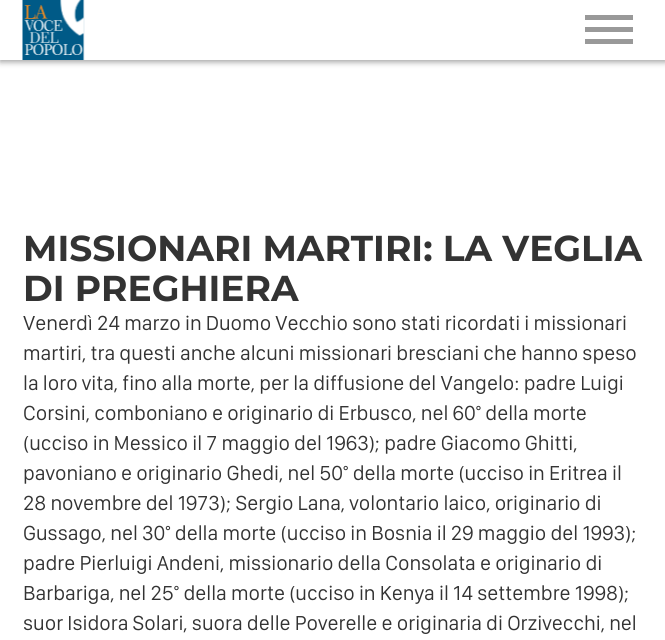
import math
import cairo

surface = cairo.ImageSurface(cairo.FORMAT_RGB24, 665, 640)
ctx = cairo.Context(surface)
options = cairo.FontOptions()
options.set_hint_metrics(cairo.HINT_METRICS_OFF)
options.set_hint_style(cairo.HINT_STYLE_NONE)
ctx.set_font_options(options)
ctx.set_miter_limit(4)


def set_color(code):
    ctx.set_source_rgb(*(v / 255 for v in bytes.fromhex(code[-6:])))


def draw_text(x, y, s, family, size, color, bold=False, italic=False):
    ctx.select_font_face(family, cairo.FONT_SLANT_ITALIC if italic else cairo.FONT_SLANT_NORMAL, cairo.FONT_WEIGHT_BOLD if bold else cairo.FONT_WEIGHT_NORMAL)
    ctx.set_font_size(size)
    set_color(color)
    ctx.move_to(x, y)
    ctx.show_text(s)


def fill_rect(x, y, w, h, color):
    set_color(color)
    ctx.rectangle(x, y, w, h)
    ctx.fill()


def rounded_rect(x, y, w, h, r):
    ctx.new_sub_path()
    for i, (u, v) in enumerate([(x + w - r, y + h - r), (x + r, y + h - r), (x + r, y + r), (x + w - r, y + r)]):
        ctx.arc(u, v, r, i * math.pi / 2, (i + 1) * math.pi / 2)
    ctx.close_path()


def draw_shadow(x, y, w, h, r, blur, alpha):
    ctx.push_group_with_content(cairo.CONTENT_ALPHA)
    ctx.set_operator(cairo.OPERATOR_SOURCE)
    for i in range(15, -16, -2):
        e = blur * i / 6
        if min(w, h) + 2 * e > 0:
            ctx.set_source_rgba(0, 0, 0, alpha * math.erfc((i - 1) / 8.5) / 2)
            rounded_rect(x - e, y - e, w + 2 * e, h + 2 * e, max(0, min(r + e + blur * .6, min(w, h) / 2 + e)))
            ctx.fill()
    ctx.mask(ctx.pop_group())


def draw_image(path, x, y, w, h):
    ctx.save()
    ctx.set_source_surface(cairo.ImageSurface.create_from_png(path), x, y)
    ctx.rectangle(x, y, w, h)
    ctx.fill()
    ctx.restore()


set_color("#ffffff")
ctx.paint()
set_color("#000000")
draw_shadow(0, 2, 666, 60, 0, 3, 0.37)
fill_rect(0, 0, 665, 60, "#ffffff")
draw_image("assets/img1.png", 22, 0, 63, 60)
fill_rect(585, 15, 48, 5, "#999999")
fill_rect(585, 27, 48, 5, "#999999")
fill_rect(585, 39, 48, 5, "#999999")
draw_text(23, 261, "MISSIONARI MARTIRI: LA VEGLIA", "Montserrat Thin", 36, "#333333")
draw_text(23, 301, "DI PREGHIERA", "Montserrat Thin", 36, "#333333")
draw_text(23, 330, "Venerdì 24 marzo in Duomo Vecchio sono stati ricordati i missionari", "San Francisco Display", 21, "#333333")
draw_text(23, 360, "martiri, tra questi anche alcuni missionari bresciani che hanno speso", "San Francisco Display", 21, "#333333")
draw_text(23, 390, "la loro vita, fino alla morte, per la diffusione del Vangelo: padre Luigi", "San Francisco Display", 21, "#333333")
draw_text(23, 420, "Corsini, comboniano e originario di Erbusco, nel 60° della morte", "San Francisco Display", 21, "#333333")
draw_text(23, 450, "(ucciso in Messico il 7 maggio del 1963); padre Giacomo Ghitti,", "San Francisco Display", 21, "#333333")
draw_text(23, 480, "pavoniano e originario Ghedi, nel 50° della morte (ucciso in Eritrea il", "San Francisco Display", 21, "#333333")
draw_text(23, 510, "28 novembre del 1973); Sergio Lana, volontario laico, originario di", "San Francisco Display", 21, "#333333")
draw_text(23, 540, "Gussago, nel 30° della morte (ucciso in Bosnia il 29 maggio del 1993);", "San Francisco Display", 21, "#333333")
draw_text(23, 570, "padre Pierluigi Andeni, missionario della Consolata e originario di", "San Francisco Display", 21, "#333333")
draw_text(23, 600, "Barbariga, nel 25° della morte (ucciso in Kenya il 14 settembre 1998);", "San Francisco Display", 21, "#333333")
draw_text(23, 630, "suor Isidora Solari, suora delle Poverelle e originaria di Orzivecchi, nel", "San Francisco Display", 21, "#333333")
surface.write_to_png("output.png")
